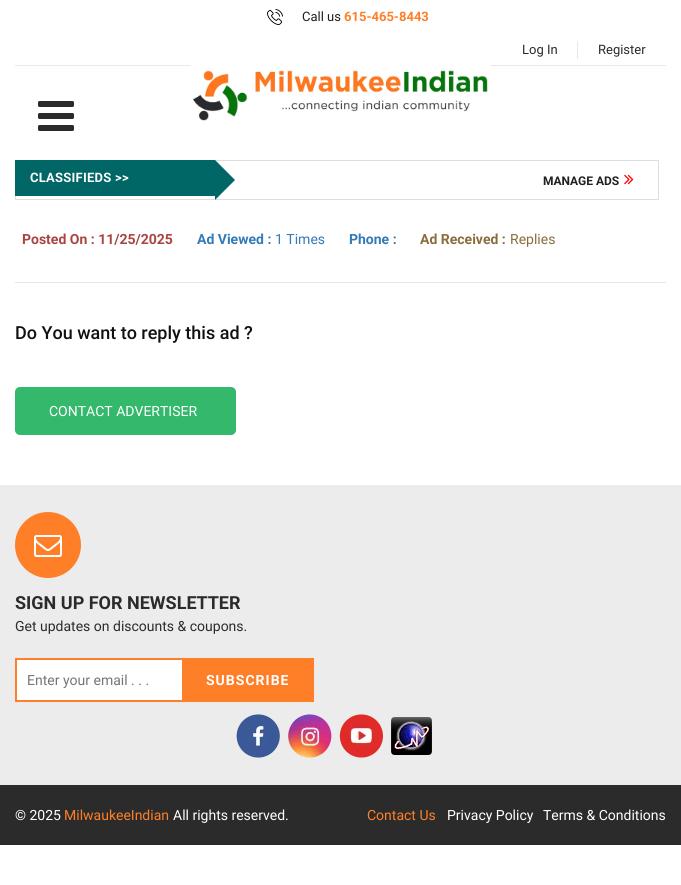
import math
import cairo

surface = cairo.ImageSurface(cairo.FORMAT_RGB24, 681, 885)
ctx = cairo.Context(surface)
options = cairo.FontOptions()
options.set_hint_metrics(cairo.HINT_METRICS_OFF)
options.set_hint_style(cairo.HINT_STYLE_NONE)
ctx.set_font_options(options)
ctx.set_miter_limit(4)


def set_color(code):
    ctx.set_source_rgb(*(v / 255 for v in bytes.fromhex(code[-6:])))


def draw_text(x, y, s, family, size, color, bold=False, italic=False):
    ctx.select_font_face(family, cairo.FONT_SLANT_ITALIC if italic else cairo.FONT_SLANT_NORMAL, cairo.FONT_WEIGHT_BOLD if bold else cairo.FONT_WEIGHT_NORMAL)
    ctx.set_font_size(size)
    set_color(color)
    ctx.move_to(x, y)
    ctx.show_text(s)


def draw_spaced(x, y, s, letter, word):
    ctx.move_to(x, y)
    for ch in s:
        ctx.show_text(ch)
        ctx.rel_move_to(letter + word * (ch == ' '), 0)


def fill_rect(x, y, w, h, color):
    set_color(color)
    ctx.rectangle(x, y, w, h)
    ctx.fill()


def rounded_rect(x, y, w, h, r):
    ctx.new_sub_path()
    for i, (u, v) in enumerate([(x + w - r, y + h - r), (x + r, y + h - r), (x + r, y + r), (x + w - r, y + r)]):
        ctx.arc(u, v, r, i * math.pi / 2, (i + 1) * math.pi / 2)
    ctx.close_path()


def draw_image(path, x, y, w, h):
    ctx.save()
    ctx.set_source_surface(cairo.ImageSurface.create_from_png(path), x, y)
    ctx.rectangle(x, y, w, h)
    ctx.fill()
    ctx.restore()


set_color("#ffffff")
ctx.paint()
fill_rect(15, 65, 651, 1, "#e9e9e9")
draw_image("assets/img1.png", 267, 9, 16, 16)
draw_text(302, 21, "Call us", "Roboto", 13, "#231f20")
draw_text(344, 21, "615-465-8443", "Roboto", 13, "#fe7f28", bold=True)
fill_rect(577, 41, 1, 18, "#e9e9e9")
draw_text(522, 54, "Log In", "Roboto", 13, "#2b2b2b")
draw_text(598, 54, "Register", "Roboto", 13, "#2b2b2b")
draw_image("assets/img2.png", 38, 101, 36, 30)
draw_image("assets/img3.png", 191, 65, 300, 56)
ctx.rectangle(15.5, 160.5, 643, 39)
set_color("#dedede")
ctx.set_line_width(1)
ctx.stroke()
fill_rect(15, 160, 200, 36, "#006666")
ctx.select_font_face("Roboto", cairo.FONT_SLANT_NORMAL, cairo.FONT_WEIGHT_BOLD)
set_color("#ffffff")
draw_spaced(30, 182, "CLASSIFIEDS >>", 0.25, 0)
set_color("#006666")
ctx.new_path()
ctx.move_to(215, 200)
ctx.line_to(215, 160)
ctx.line_to(235, 180)
ctx.close_path()
ctx.fill()
draw_text(543, 185, "MANAGE ADS", "Roboto", 12, "#231f20", bold=True)
draw_image("assets/img4.png", 624, 174, 10, 11)
fill_rect(15, 282, 651, 1, "#e5e5e5")
draw_text(22, 244, "Posted On : 11/25/2025", "Roboto", 14, "#a94442", bold=True)
draw_text(197, 244, "Ad Viewed :", "Roboto", 14, "#337ab7", bold=True)
draw_text(275, 244, "1 Times", "Roboto", 14, "#337ab7")
draw_text(349, 244, "Phone :", "Roboto", 14, "#337ab7", bold=True)
draw_text(420, 244, "Ad Received :", "Roboto", 14, "#8a6d3b", bold=True)
draw_text(510, 244, "Replies", "Roboto", 14, "#8a6d3b")
draw_text(15, 339, "Do You want to reply this ad ?", "Roboto Medium", 18, "#111111")
set_color("#33b86c")
rounded_rect(15, 387, 221, 48, 5)
ctx.fill()
draw_text(49, 416, "CONTACT ADVERTISER", "Roboto", 14, "#ffffff")
fill_rect(0, 485, 681, 300, "#ececec")
set_color("#fe7f28")
ctx.new_path()
ctx.arc(48, 545, 33, 0, 2 * math.pi)
ctx.fill()
draw_image("assets/img5.png", 34, 535, 28, 22)
draw_text(15, 609, "SIGN UP FOR NEWSLETTER", "Roboto", 18, "#2b2b2b", bold=True)
draw_text(15, 631, "Get updates on discounts & coupons.", "Roboto", 14, "#2b2b2b")
ctx.rectangle(16, 659, 297, 42)
set_color("#fe7f28")
ctx.set_line_width(2)
ctx.stroke()
fill_rect(17, 660, 165, 40, "#ffffff")
draw_text(27, 685, "Enter your email . . .", "Roboto", 14, "#757575")
fill_rect(182, 660, 130, 40, "#fe7f28")
ctx.select_font_face("Roboto", cairo.FONT_SLANT_NORMAL, cairo.FONT_WEIGHT_BOLD)
set_color("#ffffff")
draw_spaced(206, 685, "SUBSCRIBE", 1, 0)
draw_image("assets/img6.png", 236, 714, 44, 44)
draw_image("assets/img7.png", 288, 714, 44, 44)
draw_image("assets/img8.png", 339, 714, 44, 44)
draw_image("assets/img9.png", 391, 717, 41, 38)
fill_rect(0, 785, 681, 60, "#2b2b2b")
draw_text(15, 820, "© 2025", "Roboto", 14, "#ffffff")
draw_text(64, 820, "MilwaukeeIndian", "Roboto", 14, "#fe7f28")
draw_text(173, 820, "All rights reserved.", "Roboto", 14, "#ffffff")
draw_text(367, 820, "Contact Us", "Roboto", 14, "#fe7f28")
draw_text(447, 820, "Privacy Policy", "Roboto", 14, "#ffffff")
draw_text(543, 820, "Terms & Conditions", "Roboto", 14, "#ffffff")
surface.write_to_png("output.png")
